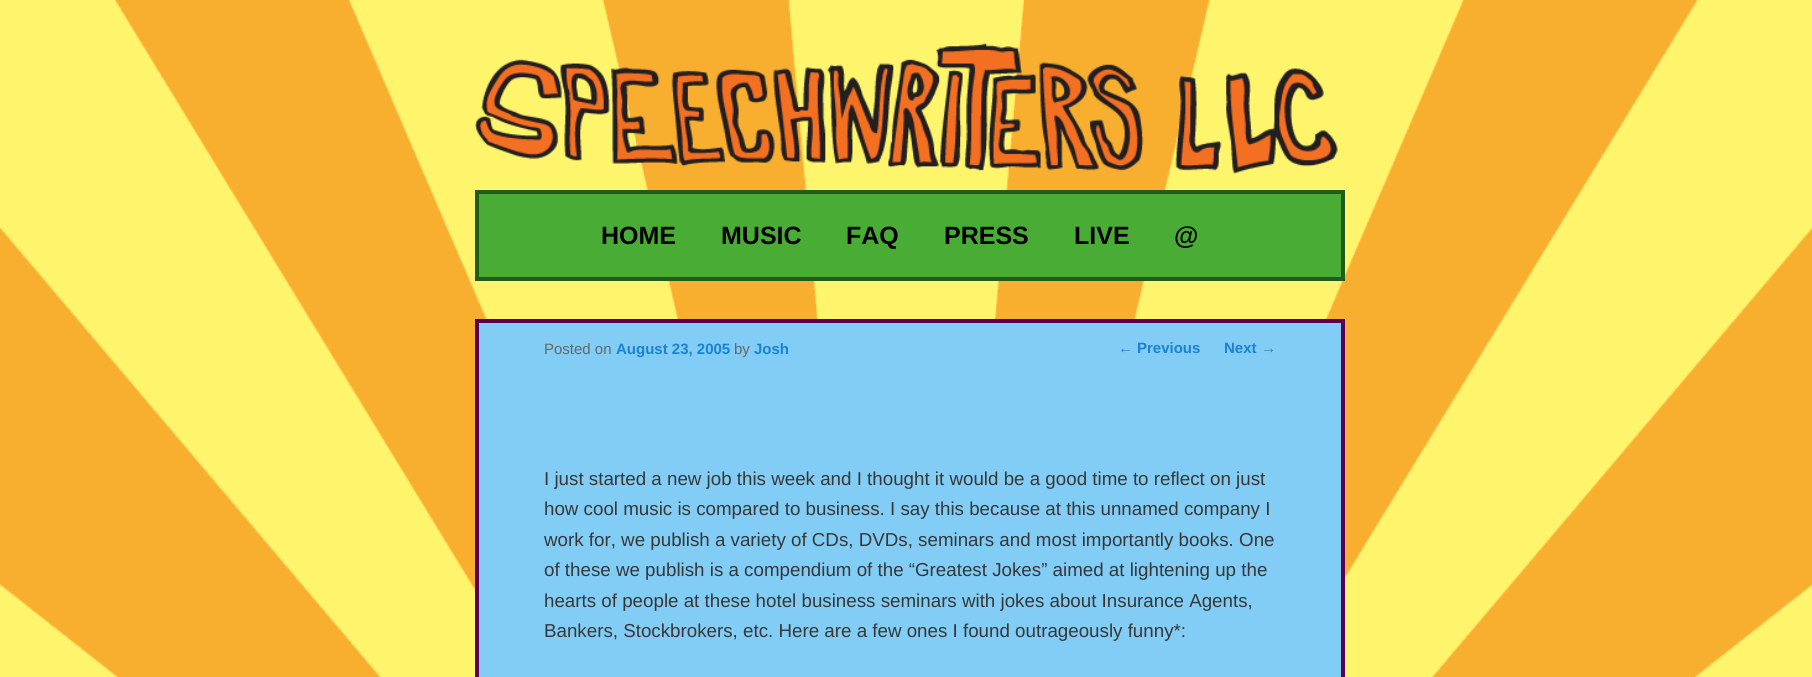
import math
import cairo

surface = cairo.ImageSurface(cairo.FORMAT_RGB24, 1812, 677)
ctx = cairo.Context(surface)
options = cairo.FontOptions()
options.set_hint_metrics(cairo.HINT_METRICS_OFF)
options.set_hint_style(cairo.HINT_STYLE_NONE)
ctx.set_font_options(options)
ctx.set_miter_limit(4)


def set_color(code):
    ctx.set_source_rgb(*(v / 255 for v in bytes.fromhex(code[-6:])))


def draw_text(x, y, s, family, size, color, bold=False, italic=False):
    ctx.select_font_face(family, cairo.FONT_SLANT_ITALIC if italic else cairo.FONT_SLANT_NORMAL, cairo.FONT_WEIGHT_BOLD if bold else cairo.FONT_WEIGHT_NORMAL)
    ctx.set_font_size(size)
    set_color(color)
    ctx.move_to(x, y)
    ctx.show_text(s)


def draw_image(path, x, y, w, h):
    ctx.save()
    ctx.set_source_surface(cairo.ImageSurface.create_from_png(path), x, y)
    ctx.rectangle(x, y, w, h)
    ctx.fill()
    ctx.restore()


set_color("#f8af2f")
ctx.paint()
draw_image("assets/img1.png", 0, 0, 1812, 677)
draw_image("assets/img2.png", 475, 43, 863, 131)
set_color("#48ac35")
ctx.rectangle(477, 192, 866, 87)
ctx.fill_preserve()
set_color("#205c1c")
ctx.set_line_width(4)
ctx.stroke()
draw_text(601, 244, "HOME", "Liberation Sans", 25, "#000000", bold=True)
draw_text(721, 244, "MUSIC", "Liberation Sans", 25, "#000000", bold=True)
draw_text(846, 244, "FAQ", "Liberation Sans", 25, "#000000", bold=True)
draw_text(944, 244, "PRESS", "Liberation Sans", 25, "#000000", bold=True)
draw_text(1074, 244, "LIVE", "Liberation Sans", 25, "#000000", bold=True)
draw_text(1174, 244, "@", "Liberation Sans", 25, "#000000", bold=True)
set_color("#81cdf6")
ctx.rectangle(477, 321, 866, 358)
ctx.fill_preserve()
set_color("#5a0054")
ctx.stroke()
draw_text(1118, 353, "←", "Liberation Sans", 15, "#1982d1")
draw_text(1137, 353, "Previous", "Liberation Sans", 15, "#1982d1", bold=True)
draw_text(1224, 353, "Next", "Liberation Sans", 15, "#1982d1", bold=True)
draw_text(1261, 353, "→", "Liberation Sans", 15, "#1982d1")
draw_text(544, 354, "Posted on", "Liberation Sans", 15, "#666666")
draw_text(616, 354, "August 23, 2005", "Liberation Sans", 15, "#1982d1", bold=True)
draw_text(734, 354, "by", "Liberation Sans", 15, "#666666")
draw_text(754, 354, "Josh", "Liberation Sans", 15, "#1982d1", bold=True)
draw_text(544, 485, "I just started a new job this week and I thought it would be a good time to reflect on just", "Liberation Sans", 18.75, "#373737")
draw_text(544, 515, "how cool music is compared to business. I say this because at this unnamed company I", "Liberation Sans", 18.75, "#373737")
draw_text(544, 546, "work for, we publish a variety of CDs, DVDs, seminars and most importantly books. One", "Liberation Sans", 18.75, "#373737")
draw_text(544, 576, "of these we publish is a compendium of the “Greatest Jokes” aimed at lightening up the", "Liberation Sans", 18.75, "#373737")
draw_text(544, 607, "hearts of people at these hotel business seminars with jokes about Insurance Agents,", "Liberation Sans", 18.75, "#373737")
draw_text(544, 637, "Bankers, Stockbrokers, etc. Here are a few ones I found outrageously funny*:", "Liberation Sans", 18.75, "#373737")
surface.write_to_png("output.png")
